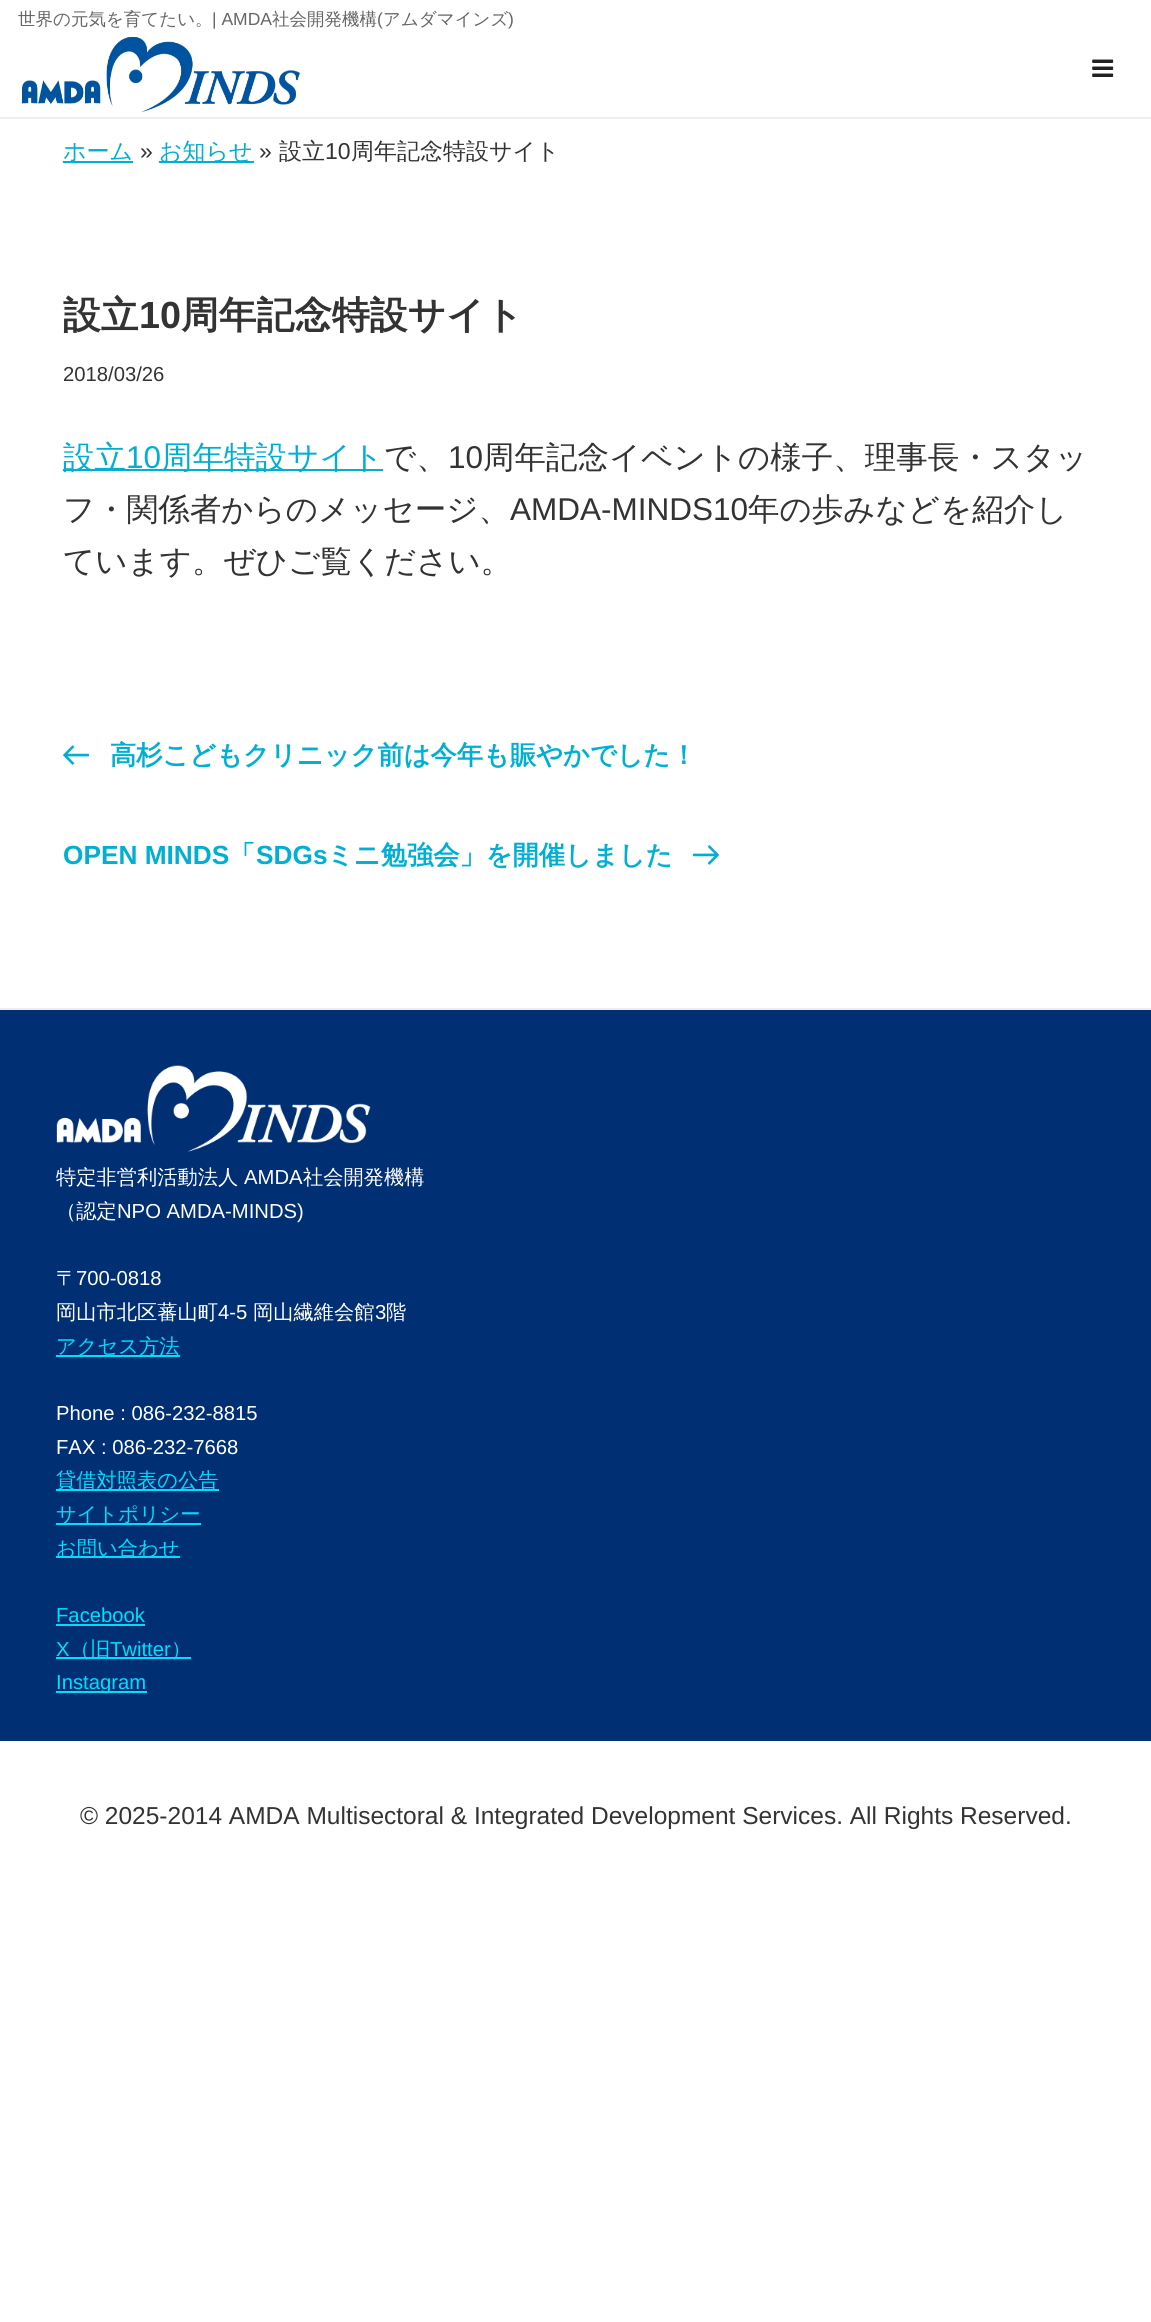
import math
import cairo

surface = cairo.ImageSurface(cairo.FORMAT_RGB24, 1151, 2322)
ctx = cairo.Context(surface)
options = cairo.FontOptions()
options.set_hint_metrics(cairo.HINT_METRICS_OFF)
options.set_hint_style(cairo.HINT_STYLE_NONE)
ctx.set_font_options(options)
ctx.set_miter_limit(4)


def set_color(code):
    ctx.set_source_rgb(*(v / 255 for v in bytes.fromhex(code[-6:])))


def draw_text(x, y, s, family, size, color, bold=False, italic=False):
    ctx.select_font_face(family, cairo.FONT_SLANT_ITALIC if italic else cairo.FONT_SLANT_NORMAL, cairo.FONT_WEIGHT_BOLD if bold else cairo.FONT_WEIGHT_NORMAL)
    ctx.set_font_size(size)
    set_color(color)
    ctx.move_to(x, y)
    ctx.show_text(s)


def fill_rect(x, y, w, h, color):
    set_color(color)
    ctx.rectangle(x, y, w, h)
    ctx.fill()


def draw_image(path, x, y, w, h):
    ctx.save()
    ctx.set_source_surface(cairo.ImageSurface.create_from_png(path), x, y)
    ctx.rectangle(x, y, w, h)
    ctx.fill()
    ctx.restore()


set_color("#ffffff")
ctx.paint()
draw_text(18, 25, "世界の元気を育てたい。", "WenQuanYi Zen Hei Medium", 17.5, "#666666")
draw_text(212, 25, "| AMDA", "Liberation Sans", 17.5, "#666666")
draw_text(272, 25, "社会開発機構", "WenQuanYi Zen Hei Medium", 17.5, "#666666")
draw_text(377, 25, "(", "Liberation Sans", 17.5, "#666666")
draw_text(383, 25, "アムダマインズ", "WenQuanYi Zen Hei Medium", 17.5, "#666666")
draw_text(508, 25, ")", "Liberation Sans", 17.5, "#666666")
draw_image("assets/img1.png", 22, 37, 278, 75)
fill_rect(0, 117, 1151, 2, "#eeeeee")
draw_image("assets/img2.png", 1092, 59, 22, 18)
fill_rect(63, 161, 70, 2, "#00afd2")
draw_text(63, 159, "ホーム", "WenQuanYi Zen Hei Medium", 23, "#00afd2")
draw_text(140, 159, "»", "Liberation Sans", 23, "#333333")
fill_rect(159, 161, 95, 2, "#00afd2")
draw_text(159, 159, "お知らせ", "WenQuanYi Zen Hei Medium", 23, "#00afd2")
draw_text(259, 159, "»", "Liberation Sans", 23, "#333333")
draw_text(279, 159, "設立", "WenQuanYi Zen Hei Medium", 23, "#333333")
draw_text(325, 159, "10", "Liberation Sans", 23, "#333333")
draw_text(351, 159, "周年記念特設サイト", "WenQuanYi Zen Hei Medium", 23, "#333333")
draw_text(63, 328, "設立", "WenQuanYi Zen Hei", 37.75, "#333333", bold=True)
draw_text(139, 328, "10", "Liberation Sans", 37.75, "#333333", bold=True)
draw_text(181, 328, "周年記念特設サイト", "WenQuanYi Zen Hei", 37.75, "#333333", bold=True)
draw_text(63, 381, "2018/03/26", "Liberation Sans", 20.25, "#333333")
fill_rect(63, 469, 320, 2, "#00afd2")
draw_text(63, 468, "設立", "WenQuanYi Zen Hei Medium", 31.5, "#00afd2")
draw_text(126, 468, "10", "Liberation Sans", 31.5, "#00afd2")
draw_text(161, 468, "周年特設サイト", "WenQuanYi Zen Hei Medium", 31.5, "#00afd2")
draw_text(384, 468, "で、", "WenQuanYi Zen Hei Medium", 31.5, "#333333")
draw_text(448, 468, "10", "Liberation Sans", 31.5, "#333333")
draw_text(483, 468, "周年記念イベントの様子、理事長・スタッ", "WenQuanYi Zen Hei Medium", 31.5, "#333333")
draw_text(63, 520, "フ・関係者からのメッセージ、", "WenQuanYi Zen Hei Medium", 31.5, "#333333")
draw_text(510, 520, "AMDA-MINDS10", "Liberation Sans", 31.5, "#333333")
draw_text(748, 520, "年の歩みなどを紹介し", "WenQuanYi Zen Hei Medium", 31.5, "#333333")
draw_text(63, 572, "ています。ぜひご覧ください。", "WenQuanYi Zen Hei Medium", 31.5, "#333333")
draw_image("assets/img3.png", 63, 745, 26, 20)
draw_text(110, 764, "高杉こどもクリニック前は今年も賑やかでした！", "WenQuanYi Zen Hei", 26.25, "#00afd2", bold=True)
draw_text(63, 864, "OPEN MINDS", "Liberation Sans", 26.25, "#00afd2", bold=True)
draw_text(229, 864, "「", "WenQuanYi Zen Hei", 26.25, "#00afd2", bold=True)
draw_text(256, 864, "SDGs", "Liberation Sans", 26.25, "#00afd2", bold=True)
draw_text(327, 864, "ミニ勉強会」を開催しました", "WenQuanYi Zen Hei", 26.25, "#00afd2", bold=True)
draw_image("assets/img4.png", 693, 845, 26, 20)
fill_rect(0, 1010, 1151, 731, "#003073")
fill_rect(0, 1008, 1151, 2, "#eeeeee")
draw_image("assets/img5.png", 56, 1065, 315, 87)
draw_text(56, 1184, "特定非営利活動法人", "WenQuanYi Zen Hei Medium", 20.25, "#ffffff")
draw_text(244, 1184, "AMDA", "Liberation Sans", 20.25, "#ffffff")
draw_text(303, 1184, "社会開発機構", "WenQuanYi Zen Hei Medium", 20.25, "#ffffff")
draw_text(56, 1218, "（認定", "WenQuanYi Zen Hei Medium", 20.25, "#ffffff")
draw_text(117, 1218, "NPO AMDA-MINDS)", "Liberation Sans", 20.25, "#ffffff")
draw_text(56, 1285, "〒", "WenQuanYi Zen Hei Medium", 20.25, "#ffffff")
draw_text(76, 1285, "700-0818", "Liberation Sans", 20.25, "#ffffff")
draw_text(56, 1319, "岡山市北区蕃山町", "WenQuanYi Zen Hei Medium", 20.25, "#ffffff")
draw_text(218, 1319, "4-5", "Liberation Sans", 20.25, "#ffffff")
draw_text(253, 1319, "岡山繊維会館", "WenQuanYi Zen Hei Medium", 20.25, "#ffffff")
draw_text(375, 1319, "3", "Liberation Sans", 20.25, "#ffffff")
draw_text(386, 1319, "階", "WenQuanYi Zen Hei Medium", 20.25, "#ffffff")
fill_rect(56, 1355, 124, 2, "#00ddff")
draw_text(56, 1353, "アクセス方法", "WenQuanYi Zen Hei Medium", 20.25, "#00ddff")
draw_text(56, 1420, "Phone : 086-232-8815", "Liberation Sans", 20.25, "#ffffff")
draw_text(56, 1454, "FAX : 086-232-7668", "Liberation Sans", 20.25, "#ffffff")
fill_rect(56, 1489, 163, 2, "#00ddff")
draw_text(56, 1487, "貸借対照表の公告", "WenQuanYi Zen Hei Medium", 20.25, "#00ddff")
fill_rect(56, 1523, 145, 2, "#00ddff")
draw_text(56, 1521, "サイトポリシー", "WenQuanYi Zen Hei Medium", 20.25, "#00ddff")
fill_rect(56, 1556, 124, 2, "#00ddff")
draw_text(56, 1555, "お問い合わせ", "WenQuanYi Zen Hei Medium", 20.25, "#00ddff")
draw_text(56, 1622, "Facebook", "Liberation Sans", 20.25, "#00ddff")
fill_rect(56, 1624, 89, 2, "#00ddff")
draw_text(56, 1656, "X", "Liberation Sans", 20.25, "#00ddff")
fill_rect(56, 1657, 135, 2, "#00ddff")
draw_text(70, 1656, "（旧", "WenQuanYi Zen Hei Medium", 20.25, "#00ddff")
draw_text(110, 1656, "Twitter", "Liberation Sans", 20.25, "#00ddff")
draw_text(171, 1656, "）", "WenQuanYi Zen Hei Medium", 20.25, "#00ddff")
fill_rect(56, 1691, 91, 2, "#00ddff")
draw_text(56, 1689, "Instagram", "Liberation Sans", 20.25, "#00ddff")
draw_text(80, 1824, "© 2025-2014 AMDA Multisectoral & Integrated Development Services. All Rights Reserved.", "Liberation Sans", 24.5, "#333333")
surface.write_to_png("output.png")
